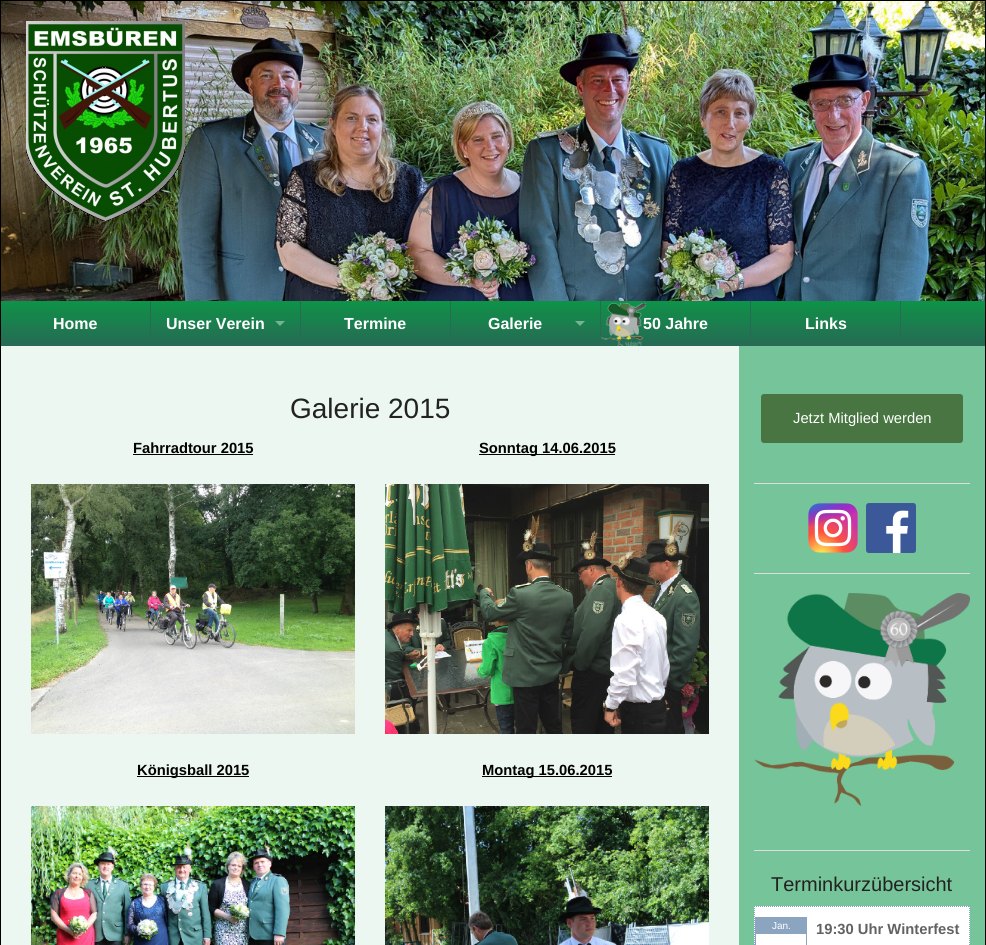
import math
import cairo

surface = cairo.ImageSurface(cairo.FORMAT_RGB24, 986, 945)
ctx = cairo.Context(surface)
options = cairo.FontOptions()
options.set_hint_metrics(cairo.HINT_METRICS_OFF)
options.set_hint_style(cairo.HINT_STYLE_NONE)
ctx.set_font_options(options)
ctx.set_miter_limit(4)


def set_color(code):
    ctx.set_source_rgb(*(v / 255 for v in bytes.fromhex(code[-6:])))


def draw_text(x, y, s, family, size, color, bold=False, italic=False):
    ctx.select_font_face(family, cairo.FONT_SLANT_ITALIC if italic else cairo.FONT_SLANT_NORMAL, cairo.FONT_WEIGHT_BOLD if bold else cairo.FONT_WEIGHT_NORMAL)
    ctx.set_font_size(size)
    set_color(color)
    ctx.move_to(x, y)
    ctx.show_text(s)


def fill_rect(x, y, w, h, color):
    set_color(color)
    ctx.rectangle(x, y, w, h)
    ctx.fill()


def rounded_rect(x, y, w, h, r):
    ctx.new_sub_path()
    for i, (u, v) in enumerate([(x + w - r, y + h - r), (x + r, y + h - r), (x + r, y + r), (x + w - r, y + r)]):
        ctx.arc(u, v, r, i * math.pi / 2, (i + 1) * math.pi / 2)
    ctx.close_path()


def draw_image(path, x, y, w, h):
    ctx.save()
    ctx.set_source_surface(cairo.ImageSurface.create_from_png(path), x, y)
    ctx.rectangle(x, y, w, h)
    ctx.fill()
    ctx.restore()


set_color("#ffffff")
ctx.paint()
ctx.rectangle(0.5, 0.5, 985, 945)
set_color("#000000")
ctx.set_line_width(1)
ctx.stroke()
draw_image("assets/img1.png", 1, 1, 984, 300)
ctx.set_source_rgba(1, 1, 1, 0.3)
ctx.rectangle(855, 18, 16, 3)
ctx.fill()
draw_image("assets/img2.png", 26, 21, 159, 200)
draw_image("assets/img3.png", 1, 301, 984, 45)
fill_rect(150, 301, 1, 45, "#286a54")
draw_text(53, 329, "Home", "Liberation Sans", 16, "#ffffff", bold=True)
fill_rect(300, 301, 1, 45, "#286a54")
draw_text(166, 329, "Unser Verein", "Liberation Sans", 16, "#ffffff", bold=True)
ctx.set_source_rgba(1, 1, 1, 0.4)
ctx.new_path()
ctx.move_to(275, 321)
ctx.line_to(285, 321)
ctx.line_to(280, 326)
ctx.close_path()
ctx.fill()
fill_rect(450, 301, 1, 45, "#286a54")
draw_text(344, 329, "Termine", "Liberation Sans", 16, "#ffffff", bold=True)
fill_rect(600, 301, 1, 45, "#286a54")
draw_text(488, 329, "Galerie", "Liberation Sans", 16, "#ffffff", bold=True)
ctx.set_source_rgba(1, 1, 1, 0.4)
ctx.new_path()
ctx.move_to(575, 321)
ctx.line_to(585, 321)
ctx.line_to(580, 326)
ctx.close_path()
ctx.fill()
fill_rect(750, 301, 1, 45, "#286a54")
draw_image("assets/img4.png", 601, 303, 45, 43)
draw_text(643, 329, "50 Jahre", "Liberation Sans", 16, "#ffffff", bold=True)
fill_rect(900, 301, 1, 45, "#286a54")
draw_text(805, 329, "Links", "Liberation Sans", 16, "#ffffff", bold=True)
fill_rect(1, 346, 738, 599, "#ecf7f1")
draw_text(290, 418, "Galerie 2015", "Liberation Sans", 28, "#222222")
draw_text(133, 453, "Fahrradtour 2015", "Liberation Sans", 14.75, "#000000", bold=True)
fill_rect(133, 454, 120, 1, "#000000")
draw_image("assets/img5.png", 31, 484, 324, 250)
fill_rect(479, 454, 136, 1, "#000000")
draw_text(479, 453, "Sonntag 14.06.2015", "Liberation Sans", 14.75, "#000000", bold=True)
draw_image("assets/img6.png", 385, 484, 324, 250)
fill_rect(137, 776, 112, 1, "#000000")
draw_text(137, 775, "Königsball 2015", "Liberation Sans", 14.75, "#000000", bold=True)
draw_image("assets/img7.png", 31, 806, 324, 139)
fill_rect(482, 776, 130, 1, "#000000")
draw_text(482, 775, "Montag 15.06.2015", "Liberation Sans", 14.75, "#000000", bold=True)
draw_image("assets/img8.png", 385, 806, 324, 139)
fill_rect(739, 346, 246, 599, "#76c499")
set_color("#487542")
rounded_rect(761, 394, 202, 49, 3)
ctx.fill()
draw_text(793, 423, "Jetzt Mitglied werden", "Liberation Sans", 14.75, "#ffffff")
fill_rect(754, 483, 216, 1, "#dddddd")
draw_image("assets/img9.png", 808, 503, 50, 50)
draw_image("assets/img10.png", 866, 503, 50, 50)
fill_rect(754, 573, 216, 1, "#dddddd")
draw_image("assets/img11.png", 754, 593, 216, 213)
fill_rect(754, 850, 216, 1, "#dddddd")
draw_text(771, 891, "Terminkurzübersicht", "Liberation Sans", 20, "#222222")
fill_rect(754, 906, 216, 39, "#ffffff")
ctx.new_path()
ctx.move_to(754, 906.5)
ctx.line_to(970, 906.5)
set_color("#8ba5c0")
ctx.set_dash([1, 1])
ctx.stroke()
ctx.new_path()
ctx.move_to(969.5, 906)
ctx.line_to(969.5, 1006)
ctx.stroke()
ctx.new_path()
ctx.move_to(754.5, 906)
ctx.line_to(754.5, 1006)
ctx.stroke()
ctx.rectangle(755.5, 917.5, 51, 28)
ctx.set_dash([])
ctx.stroke()
fill_rect(756, 918, 50, 16, "#8ba5c0")
draw_text(772, 929, "Jan.", "Liberation Sans", 10, "#ffffff")
draw_text(816, 934, "19:30 Uhr Winterfest", "Liberation Sans", 14.75, "#626262", bold=True)
surface.write_to_png("output.png")
